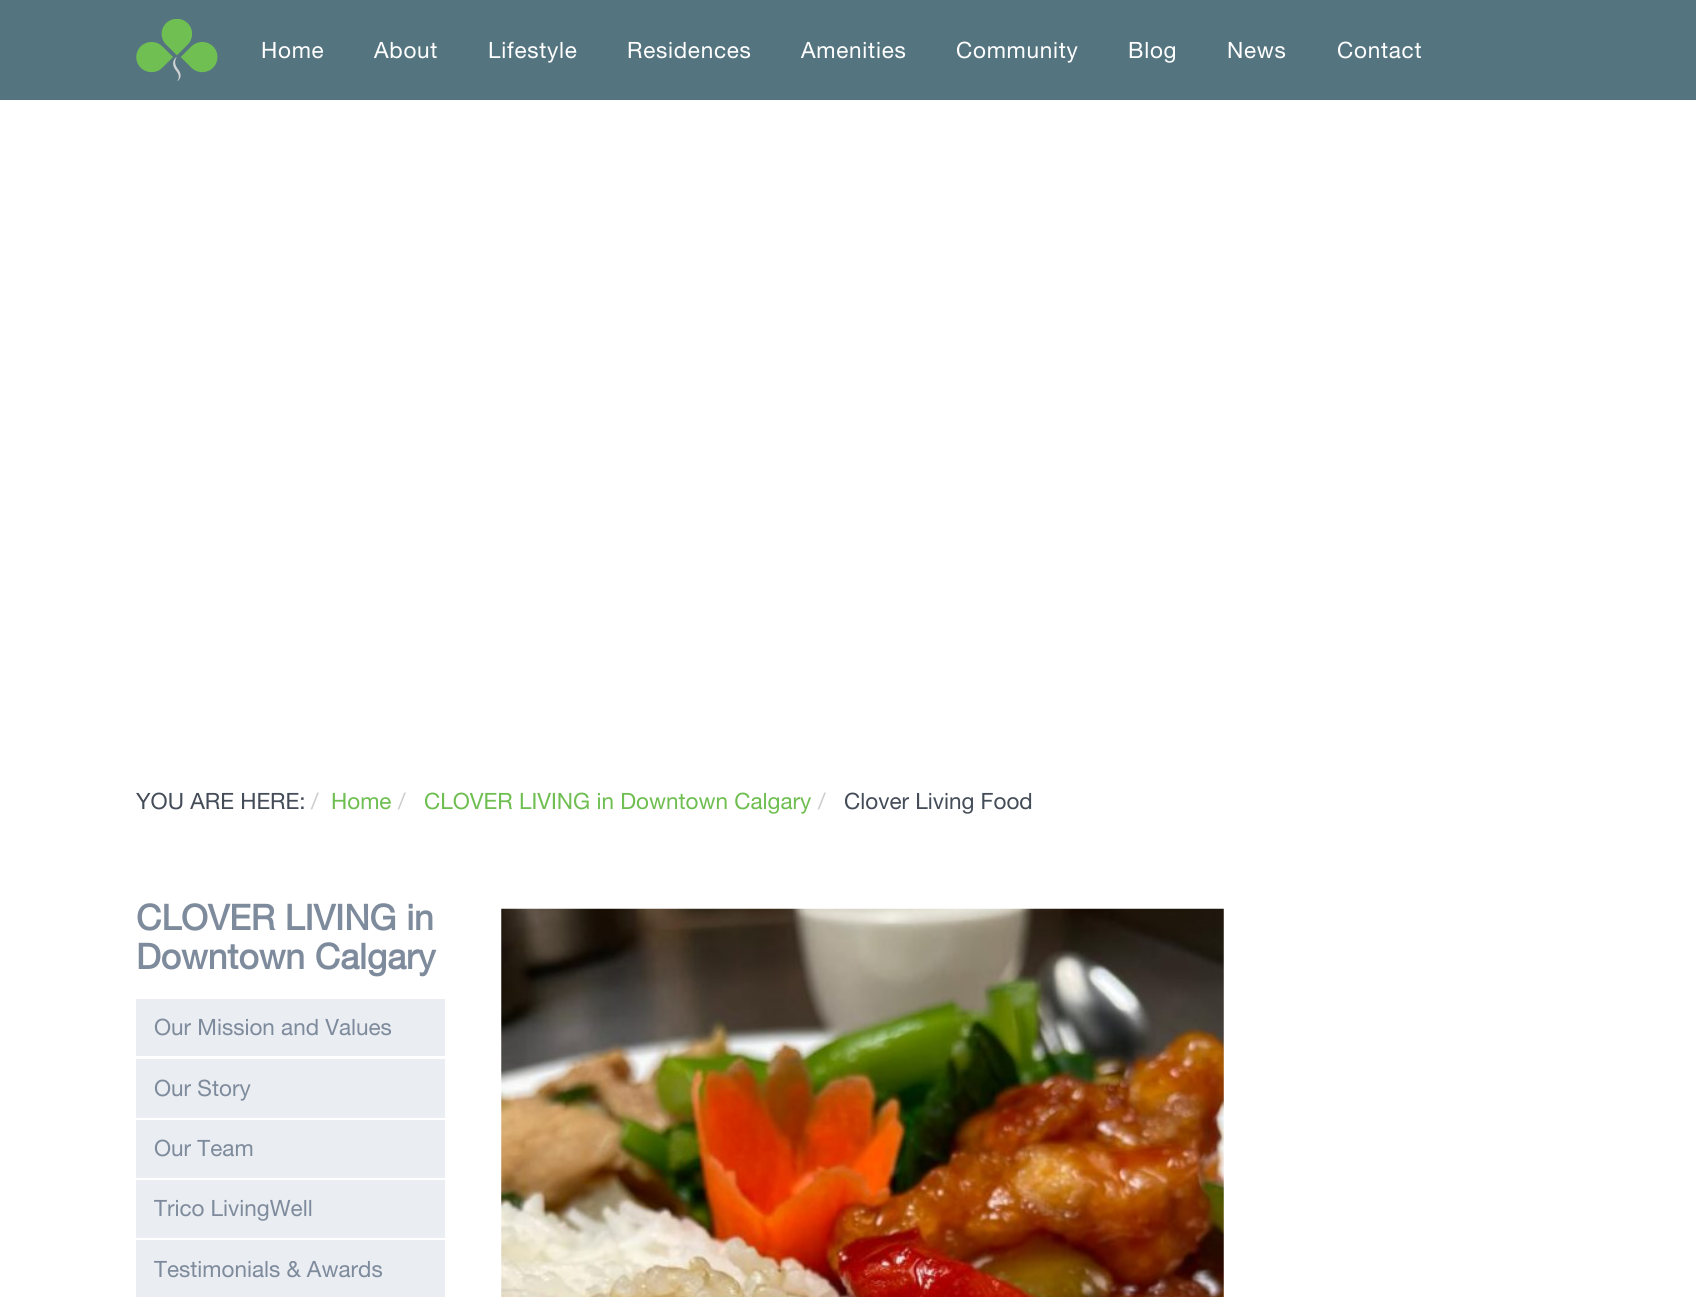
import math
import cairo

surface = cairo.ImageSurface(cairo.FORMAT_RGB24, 1696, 1297)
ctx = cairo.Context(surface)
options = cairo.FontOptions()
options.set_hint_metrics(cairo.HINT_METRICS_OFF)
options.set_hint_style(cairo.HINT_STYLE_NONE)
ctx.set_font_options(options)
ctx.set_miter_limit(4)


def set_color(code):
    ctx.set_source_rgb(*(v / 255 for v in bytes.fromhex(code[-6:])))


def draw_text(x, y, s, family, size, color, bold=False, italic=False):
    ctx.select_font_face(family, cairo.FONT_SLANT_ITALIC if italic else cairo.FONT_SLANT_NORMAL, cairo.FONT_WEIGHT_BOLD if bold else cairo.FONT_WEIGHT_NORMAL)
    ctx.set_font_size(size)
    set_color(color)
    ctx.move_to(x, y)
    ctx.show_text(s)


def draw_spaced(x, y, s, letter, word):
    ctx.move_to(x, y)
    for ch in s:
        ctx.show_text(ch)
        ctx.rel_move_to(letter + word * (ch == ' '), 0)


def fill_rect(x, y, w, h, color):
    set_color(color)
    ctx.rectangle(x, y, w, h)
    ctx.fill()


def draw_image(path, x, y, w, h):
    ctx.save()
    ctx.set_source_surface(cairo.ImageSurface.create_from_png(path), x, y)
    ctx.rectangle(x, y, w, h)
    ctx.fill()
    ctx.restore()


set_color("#ffffff")
ctx.paint()
fill_rect(0, 0, 1696, 100, "#54747f")
draw_image("assets/img1.png", 136, 19, 82, 62)
ctx.select_font_face("Helvetica Neue")
ctx.set_font_size(22.5)
set_color("#ffffff")
draw_spaced(261, 58, "Home", 0.75, 0)
draw_spaced(374, 58, "About", 0.75, 0)
draw_spaced(488, 58, "Lifestyle", 0.75, 0)
draw_spaced(627, 58, "Residences", 0.75, 0)
draw_spaced(801, 58, "Amenities", 0.75, 0)
draw_spaced(956, 58, "Community", 0.75, 0)
draw_spaced(1128, 58, "Blog", 0.75, 0)
draw_spaced(1227, 58, "News", 0.75, 0)
draw_spaced(1337, 58, "Contact", 0.75, 0)
draw_text(136, 809, "YOU ARE HERE:", "Helvetica Neue", 22.5, "#444c58")
draw_text(311, 809, "/", "Helvetica Neue", 22.5, "#cccccc")
draw_text(331, 809, "Home", "Helvetica Neue", 22.5, "#6fbe51")
draw_text(398, 809, "/", "Helvetica Neue", 22.5, "#cccccc")
draw_text(424, 809, "CLOVER LIVING in Downtown Calgary", "Helvetica Neue", 22.5, "#6fbe51")
draw_text(818, 809, "/", "Helvetica Neue", 22.5, "#cccccc")
draw_text(844, 809, "Clover Living Food", "Helvetica Neue", 22.5, "#444c58")
draw_text(136, 930, "CLOVER LIVING in", "Helvetica Neue", 35.25, "#7e8b9c", bold=True)
draw_text(136, 969, "Downtown Calgary", "Helvetica Neue", 35.25, "#7e8b9c", bold=True)
fill_rect(136, 999, 309, 57, "#eaedf2")
draw_text(154, 1035, "Our Mission and Values", "Helvetica Neue", 22.5, "#7e8b9c")
fill_rect(136, 1059, 309, 59, "#eaedf2")
draw_text(154, 1096, "Our Story", "Helvetica Neue", 22.5, "#7e8b9c")
fill_rect(136, 1120, 309, 58, "#eaedf2")
draw_text(154, 1156, "Our Team", "Helvetica Neue", 22.5, "#7e8b9c")
fill_rect(136, 1180, 309, 58, "#eaedf2")
draw_text(154, 1216, "Trico LivingWell", "Helvetica Neue", 22.5, "#7e8b9c")
fill_rect(136, 1240, 309, 57, "#eaedf2")
draw_text(154, 1277, "Testimonials & Awards", "Helvetica Neue", 22.5, "#7e8b9c")
draw_image("assets/img2.png", 501, 908, 723, 389)
surface.write_to_png("output.png")
